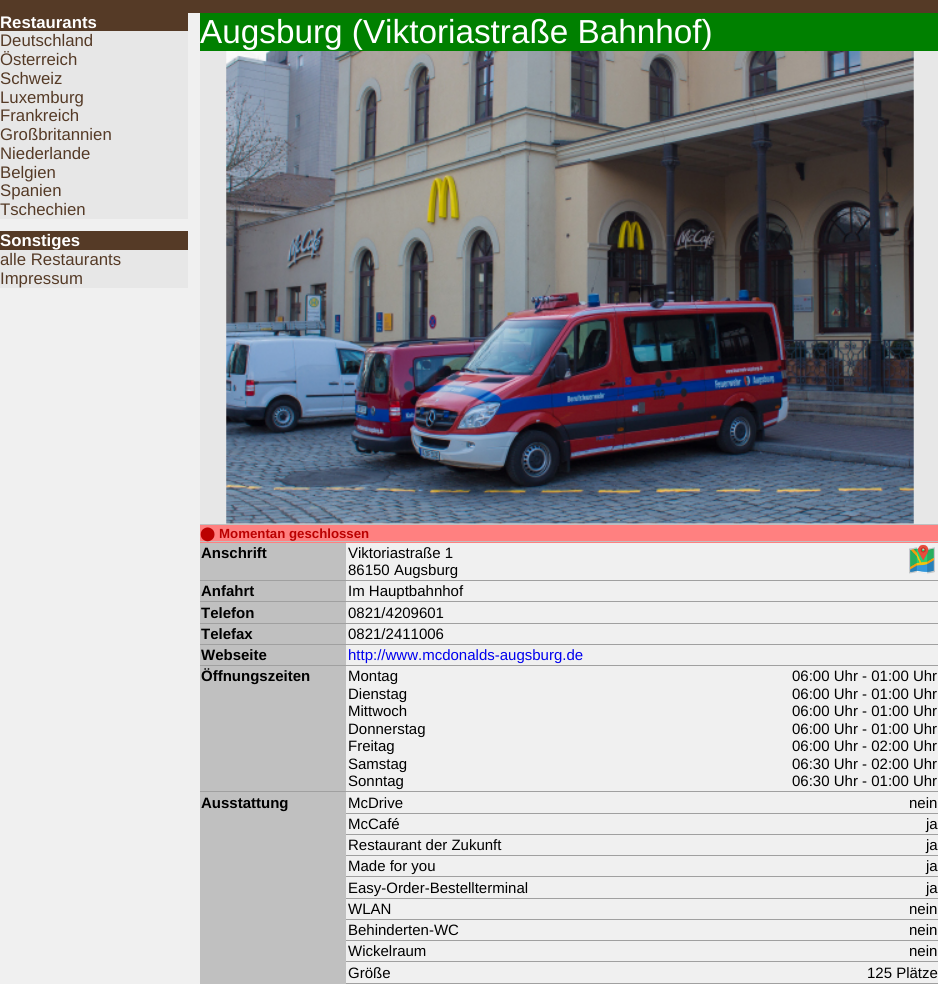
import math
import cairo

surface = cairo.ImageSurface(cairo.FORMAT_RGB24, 938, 984)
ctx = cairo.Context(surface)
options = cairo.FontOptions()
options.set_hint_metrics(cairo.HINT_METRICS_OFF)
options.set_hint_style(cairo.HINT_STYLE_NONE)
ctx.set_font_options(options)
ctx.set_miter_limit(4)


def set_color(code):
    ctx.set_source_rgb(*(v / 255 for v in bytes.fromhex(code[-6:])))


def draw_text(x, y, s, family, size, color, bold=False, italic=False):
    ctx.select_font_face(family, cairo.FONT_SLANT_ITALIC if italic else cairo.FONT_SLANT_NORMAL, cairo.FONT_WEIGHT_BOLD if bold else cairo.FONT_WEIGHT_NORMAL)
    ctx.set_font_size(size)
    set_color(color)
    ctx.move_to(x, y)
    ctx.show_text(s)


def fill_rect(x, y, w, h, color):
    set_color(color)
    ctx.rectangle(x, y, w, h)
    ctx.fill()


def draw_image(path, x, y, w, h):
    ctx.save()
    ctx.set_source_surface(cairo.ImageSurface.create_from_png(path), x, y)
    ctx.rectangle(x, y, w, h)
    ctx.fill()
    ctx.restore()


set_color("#f0f0f0")
ctx.paint()
fill_rect(0, 0, 938, 13, "#553a26")
fill_rect(0, 31, 188, 188, "#e7e7e7")
fill_rect(0, 13, 188, 18, "#553a26")
draw_text(0, 28, "Restaurants", "Liberation Sans", 16.75, "#ffffff", bold=True)
draw_text(0, 46, "Deutschland", "Liberation Sans", 16.75, "#553a26")
draw_text(0, 65, "Österreich", "Liberation Sans", 16.75, "#553a26")
draw_text(0, 84, "Schweiz", "Liberation Sans", 16.75, "#553a26")
draw_text(0, 103, "Luxemburg", "Liberation Sans", 16.75, "#553a26")
draw_text(0, 121, "Frankreich", "Liberation Sans", 16.75, "#553a26")
draw_text(0, 140, "Großbritannien", "Liberation Sans", 16.75, "#553a26")
draw_text(0, 159, "Niederlande", "Liberation Sans", 16.75, "#553a26")
draw_text(0, 178, "Belgien", "Liberation Sans", 16.75, "#553a26")
draw_text(0, 196, "Spanien", "Liberation Sans", 16.75, "#553a26")
draw_text(0, 215, "Tschechien", "Liberation Sans", 16.75, "#553a26")
fill_rect(0, 250, 188, 38, "#e7e7e7")
fill_rect(0, 231, 188, 19, "#553a26")
draw_text(0, 246, "Sonstiges", "Liberation Sans", 16.75, "#ffffff", bold=True)
draw_text(0, 265, "alle Restaurants", "Liberation Sans", 16.75, "#553a26")
draw_text(0, 284, "Impressum", "Liberation Sans", 16.75, "#553a26")
fill_rect(200, 13, 738, 38, "#008000")
draw_text(200, 43, "Augsburg (Viktoriastraße Bahnhof)", "Liberation Sans", 33.3, "#ffffff")
fill_rect(200, 51, 738, 473, "#e7e7e7")
fill_rect(200, 524, 738, 1, "#c0c0c0")
draw_image("assets/img1.png", 226, 51, 688, 473)
fill_rect(200, 525, 738, 18, "#ff8080")
fill_rect(200, 541, 738, 1, "#c0c0c0")
draw_text(200, 538, "⬤", "DejaVu Sans", 13.25, "#bb0000", bold=True)
draw_text(219, 538, "Momentan geschlossen", "Liberation Sans", 13.25, "#bb0000", bold=True)
fill_rect(200, 543, 146, 37, "#c0c0c0")
fill_rect(200, 580, 738, 1, "#a0a0a0")
draw_text(201, 558, "Anschrift", "Liberation Sans", 15, "#000000", bold=True)
draw_text(348, 558, "Viktoriastraße 1", "Liberation Sans", 15, "#000000")
draw_text(348, 575, "86150 Augsburg", "Liberation Sans", 15, "#000000")
draw_image("assets/img2.png", 909, 544, 26, 30)
fill_rect(200, 581, 146, 42, "#c0c0c0")
fill_rect(200, 601, 738, 1, "#a0a0a0")
draw_text(201, 596, "Anfahrt", "Liberation Sans", 15, "#000000", bold=True)
draw_text(348, 596, "Im Hauptbahnhof", "Liberation Sans", 15, "#000000")
fill_rect(200, 623, 738, 1, "#a0a0a0")
draw_text(201, 618, "Telefon", "Liberation Sans", 15, "#000000", bold=True)
draw_text(348, 618, "0821/4209601", "Liberation Sans", 15, "#000000")
fill_rect(200, 624, 146, 20, "#c0c0c0")
fill_rect(200, 644, 738, 1, "#a0a0a0")
draw_text(201, 639, "Telefax", "Liberation Sans", 15, "#000000", bold=True)
draw_text(348, 639, "0821/2411006", "Liberation Sans", 15, "#000000")
fill_rect(200, 645, 146, 20, "#c0c0c0")
fill_rect(200, 665, 738, 1, "#a0a0a0")
draw_text(201, 660, "Webseite", "Liberation Sans", 15, "#000000", bold=True)
draw_text(348, 660, "http://www.mcdonalds-augsburg.de", "Liberation Sans", 15, "#0000ee")
fill_rect(200, 666, 146, 318, "#c0c0c0")
fill_rect(200, 791, 738, 1, "#a0a0a0")
draw_text(201, 681, "Öffnungszeiten", "Liberation Sans", 15, "#000000", bold=True)
draw_text(348, 681, "Montag", "Liberation Sans", 15, "#000000")
draw_text(348, 699, "Dienstag", "Liberation Sans", 15, "#000000")
draw_text(348, 716, "Mittwoch", "Liberation Sans", 15, "#000000")
draw_text(348, 734, "Donnerstag", "Liberation Sans", 15, "#000000")
draw_text(348, 751, "Freitag", "Liberation Sans", 15, "#000000")
draw_text(348, 769, "Samstag", "Liberation Sans", 15, "#000000")
draw_text(348, 786, "Sonntag", "Liberation Sans", 15, "#000000")
draw_text(792, 681, "06:00 Uhr - 01:00 Uhr", "Liberation Sans", 15, "#000000")
draw_text(792, 699, "06:00 Uhr - 01:00 Uhr", "Liberation Sans", 15, "#000000")
draw_text(792, 716, "06:00 Uhr - 01:00 Uhr", "Liberation Sans", 15, "#000000")
draw_text(792, 734, "06:00 Uhr - 01:00 Uhr", "Liberation Sans", 15, "#000000")
draw_text(792, 751, "06:00 Uhr - 02:00 Uhr", "Liberation Sans", 15, "#000000")
draw_text(792, 769, "06:30 Uhr - 02:00 Uhr", "Liberation Sans", 15, "#000000")
draw_text(792, 786, "06:30 Uhr - 01:00 Uhr", "Liberation Sans", 15, "#000000")
draw_text(201, 808, "Ausstattung", "Liberation Sans", 15, "#000000", bold=True)
fill_rect(346, 813, 592, 1, "#a0a0a0")
draw_text(348, 808, "McDrive", "Liberation Sans", 15, "#000000")
draw_text(909, 808, "nein", "Liberation Sans", 15, "#000000")
fill_rect(346, 834, 592, 1, "#a0a0a0")
draw_text(348, 829, "McCafé", "Liberation Sans", 15, "#000000")
draw_text(926, 829, "ja", "Liberation Sans", 15, "#000000")
fill_rect(346, 855, 592, 1, "#a0a0a0")
draw_text(348, 850, "Restaurant der Zukunft", "Liberation Sans", 15, "#000000")
draw_text(926, 850, "ja", "Liberation Sans", 15, "#000000")
fill_rect(346, 876, 592, 1, "#a0a0a0")
draw_text(348, 871, "Made for you", "Liberation Sans", 15, "#000000")
draw_text(926, 871, "ja", "Liberation Sans", 15, "#000000")
fill_rect(346, 898, 592, 1, "#a0a0a0")
draw_text(348, 893, "Easy-Order-Bestellterminal", "Liberation Sans", 15, "#000000")
draw_text(926, 893, "ja", "Liberation Sans", 15, "#000000")
fill_rect(346, 919, 592, 1, "#a0a0a0")
draw_text(348, 914, "WLAN", "Liberation Sans", 15, "#000000")
draw_text(909, 914, "nein", "Liberation Sans", 15, "#000000")
fill_rect(346, 940, 592, 1, "#a0a0a0")
draw_text(348, 935, "Behinderten-WC", "Liberation Sans", 15, "#000000")
draw_text(909, 935, "nein", "Liberation Sans", 15, "#000000")
fill_rect(346, 961, 592, 1, "#a0a0a0")
draw_text(348, 956, "Wickelraum", "Liberation Sans", 15, "#000000")
draw_text(909, 956, "nein", "Liberation Sans", 15, "#000000")
fill_rect(346, 983, 592, 1, "#a0a0a0")
draw_text(348, 978, "Größe", "Liberation Sans", 15, "#000000")
draw_text(867, 978, "125 Plätze", "Liberation Sans", 15, "#000000")
surface.write_to_png("output.png")
